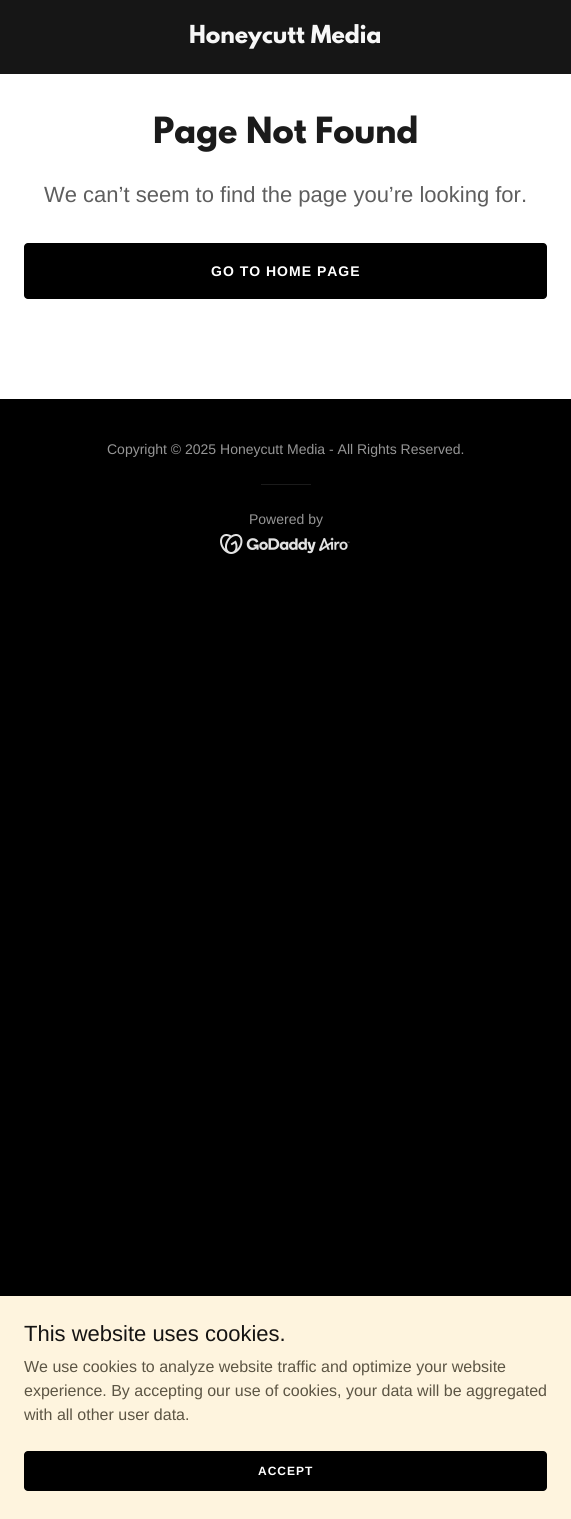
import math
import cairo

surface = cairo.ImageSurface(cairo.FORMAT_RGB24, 571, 1519)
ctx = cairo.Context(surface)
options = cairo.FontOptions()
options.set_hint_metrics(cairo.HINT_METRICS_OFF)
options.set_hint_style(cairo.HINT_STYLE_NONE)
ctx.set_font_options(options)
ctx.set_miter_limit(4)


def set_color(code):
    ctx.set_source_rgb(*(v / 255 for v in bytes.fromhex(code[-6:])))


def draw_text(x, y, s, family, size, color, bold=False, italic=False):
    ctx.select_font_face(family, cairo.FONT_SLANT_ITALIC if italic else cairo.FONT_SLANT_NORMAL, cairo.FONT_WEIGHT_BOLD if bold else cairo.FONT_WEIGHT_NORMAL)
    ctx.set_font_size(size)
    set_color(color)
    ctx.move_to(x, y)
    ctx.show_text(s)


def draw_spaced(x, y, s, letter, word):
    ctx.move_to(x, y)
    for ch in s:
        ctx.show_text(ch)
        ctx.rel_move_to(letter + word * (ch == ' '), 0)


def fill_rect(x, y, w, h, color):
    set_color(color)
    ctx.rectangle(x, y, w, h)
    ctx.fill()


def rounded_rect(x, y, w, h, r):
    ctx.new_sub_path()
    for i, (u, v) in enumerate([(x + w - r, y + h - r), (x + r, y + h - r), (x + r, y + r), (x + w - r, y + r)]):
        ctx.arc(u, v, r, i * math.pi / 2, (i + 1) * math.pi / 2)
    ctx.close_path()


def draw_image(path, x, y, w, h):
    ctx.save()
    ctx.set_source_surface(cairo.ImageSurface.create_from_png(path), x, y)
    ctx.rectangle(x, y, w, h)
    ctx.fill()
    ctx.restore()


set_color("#000000")
ctx.paint()
fill_rect(0, 0, 571, 74, "#161616")
draw_text(189, 43, "Honeycutt Media", "League Spartan", 22, "#f7f7f7", bold=True)
fill_rect(0, 74, 571, 325, "#ffffff")
draw_text(153, 143, "Page Not Found", "League Spartan", 32, "#1b1b1b", bold=True)
draw_text(44, 202, "We can’t seem to find the page you’re looking for.", "Liberation Sans", 22, "#5e5e5e")
set_color("#000000")
rounded_rect(24, 243, 523, 56, 4)
ctx.fill()
ctx.select_font_face("Liberation Sans", cairo.FONT_SLANT_NORMAL, cairo.FONT_WEIGHT_BOLD)
ctx.set_font_size(14)
set_color("#ffffff")
draw_spaced(211, 276, "GO TO HOME PAGE", 1, 0)
draw_text(107, 454, "Copyright © 2025 Honeycutt Media - All Rights Reserved.", "Liberation Sans", 14, "#969696")
fill_rect(261, 484, 50, 1, "#1b1b1b")
draw_text(249, 524, "Powered by", "Liberation Sans", 14, "#969696")
draw_image("assets/img1.png", 220, 534, 130, 20)
fill_rect(0, 1296, 571, 223, "#fef4de")
draw_text(24, 1341, "This website uses cookies.", "Liberation Sans", 22, "#151413")
draw_text(24, 1372, "We use cookies to analyze website traffic and optimize your website", "Liberation Sans", 16, "#5c5544")
draw_text(24, 1396, "experience. By accepting our use of cookies, your data will be aggregated", "Liberation Sans", 16, "#5c5544")
draw_text(24, 1420, "with all other user data.", "Liberation Sans", 16, "#5c5544")
set_color("#000000")
rounded_rect(24, 1451, 523, 40, 4)
ctx.fill()
ctx.select_font_face("Liberation Sans", cairo.FONT_SLANT_NORMAL, cairo.FONT_WEIGHT_BOLD)
ctx.set_font_size(12)
set_color("#ffffff")
draw_spaced(258, 1475, "ACCEPT", 1, 0)
surface.write_to_png("output.png")
